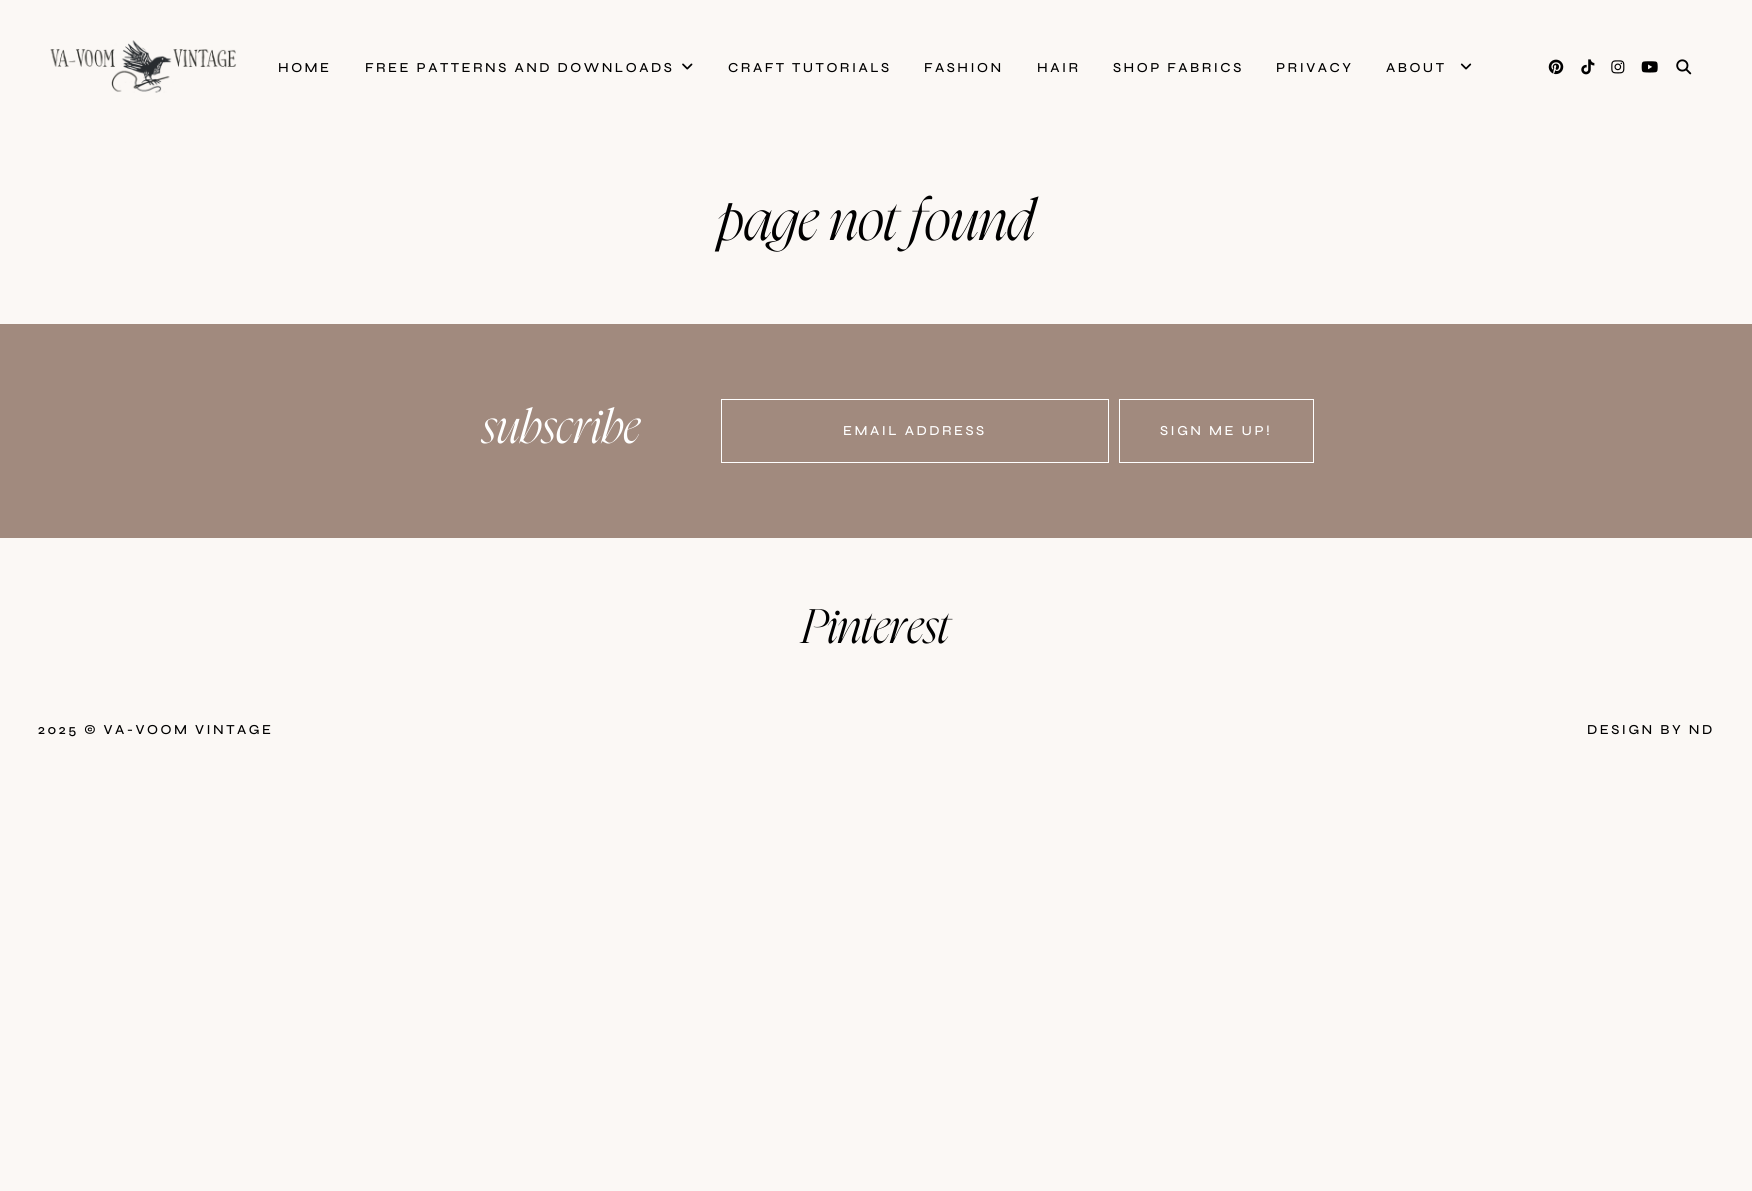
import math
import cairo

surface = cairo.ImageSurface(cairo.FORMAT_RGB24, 1752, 1191)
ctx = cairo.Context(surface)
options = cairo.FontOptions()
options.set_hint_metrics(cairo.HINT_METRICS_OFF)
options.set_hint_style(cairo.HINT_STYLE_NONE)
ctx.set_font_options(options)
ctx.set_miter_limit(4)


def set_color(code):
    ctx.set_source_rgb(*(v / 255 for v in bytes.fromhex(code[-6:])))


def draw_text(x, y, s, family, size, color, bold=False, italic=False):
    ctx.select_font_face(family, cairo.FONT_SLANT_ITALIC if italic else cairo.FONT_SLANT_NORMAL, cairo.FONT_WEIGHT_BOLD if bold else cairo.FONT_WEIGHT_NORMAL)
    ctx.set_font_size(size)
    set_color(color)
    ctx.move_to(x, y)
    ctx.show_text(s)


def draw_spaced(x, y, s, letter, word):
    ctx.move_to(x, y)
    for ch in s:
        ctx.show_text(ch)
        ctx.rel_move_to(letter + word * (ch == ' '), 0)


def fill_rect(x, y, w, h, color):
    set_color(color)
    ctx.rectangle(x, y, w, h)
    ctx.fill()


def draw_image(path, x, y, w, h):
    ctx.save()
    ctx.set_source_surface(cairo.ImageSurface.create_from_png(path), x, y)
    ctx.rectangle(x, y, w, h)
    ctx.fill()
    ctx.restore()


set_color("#fbf8f5")
ctx.paint()
draw_image("assets/img1.png", 50, 40, 187, 53)
ctx.select_font_face("Syne Medium")
ctx.set_font_size(13.75)
set_color("#000000")
draw_spaced(278, 72, "HOME", 2.5, 0)
draw_spaced(365, 72, "FREE PATTERNS AND DOWNLOADS", 2.5, 0)
draw_image("assets/img2.png", 682, 63, 11, 7)
draw_spaced(728, 72, "CRAFT TUTORIALS", 2.5, 0)
draw_spaced(924, 72, "FASHION", 2.5, 0)
draw_spaced(1037, 72, "HAIR", 2.5, 0)
draw_spaced(1113, 72, "SHOP FABRICS", 2.5, 0)
draw_spaced(1276, 72, "PRIVACY", 2.5, 0)
draw_spaced(1386, 72, "ABOUT", 2.5, 0)
draw_image("assets/img3.png", 1460, 63, 12, 7)
draw_image("assets/img4.png", 1548, 59, 16, 16)
draw_image("assets/img5.png", 1581, 59, 14, 16)
draw_image("assets/img6.png", 1611, 60, 14, 14)
draw_image("assets/img7.png", 1641, 61, 17, 12)
draw_image("assets/img8.png", 1676, 59, 16, 16)
draw_text(718, 240, "page not found", "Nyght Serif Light", 57.5, "#000000", italic=True)
fill_rect(0, 324, 1752, 214, "#a18a7e")
draw_text(482, 443, "subscribe", "Nyght Serif Light", 47.5, "#ffffff", italic=True)
ctx.rectangle(721.5, 399.5, 387, 63)
ctx.set_line_width(1)
ctx.stroke()
ctx.select_font_face("Syne Medium")
ctx.set_font_size(13.75)
draw_spaced(843, 435, "EMAIL ADDRESS", 2.5, 0)
ctx.rectangle(1119.5, 399.5, 194, 63)
ctx.stroke()
draw_spaced(1160, 435, "SIGN ME UP!", 2.5, 0)
draw_text(802, 643, "Pinterest", "Nyght Serif Light", 47.5, "#000000", italic=True)
ctx.select_font_face("Syne Medium")
ctx.set_font_size(13.75)
draw_spaced(38, 734, "2025 © VA-VOOM VINTAGE", 2.5, 0)
draw_spaced(1587, 734, "DESIGN BY ND", 2.5, 0)
surface.write_to_png("output.png")
